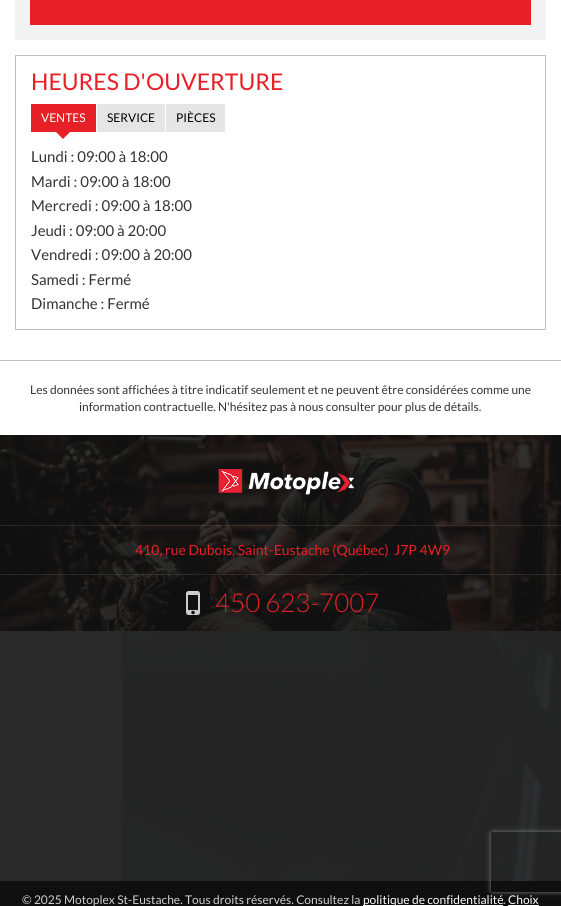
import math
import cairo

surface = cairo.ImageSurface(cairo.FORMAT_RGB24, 561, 906)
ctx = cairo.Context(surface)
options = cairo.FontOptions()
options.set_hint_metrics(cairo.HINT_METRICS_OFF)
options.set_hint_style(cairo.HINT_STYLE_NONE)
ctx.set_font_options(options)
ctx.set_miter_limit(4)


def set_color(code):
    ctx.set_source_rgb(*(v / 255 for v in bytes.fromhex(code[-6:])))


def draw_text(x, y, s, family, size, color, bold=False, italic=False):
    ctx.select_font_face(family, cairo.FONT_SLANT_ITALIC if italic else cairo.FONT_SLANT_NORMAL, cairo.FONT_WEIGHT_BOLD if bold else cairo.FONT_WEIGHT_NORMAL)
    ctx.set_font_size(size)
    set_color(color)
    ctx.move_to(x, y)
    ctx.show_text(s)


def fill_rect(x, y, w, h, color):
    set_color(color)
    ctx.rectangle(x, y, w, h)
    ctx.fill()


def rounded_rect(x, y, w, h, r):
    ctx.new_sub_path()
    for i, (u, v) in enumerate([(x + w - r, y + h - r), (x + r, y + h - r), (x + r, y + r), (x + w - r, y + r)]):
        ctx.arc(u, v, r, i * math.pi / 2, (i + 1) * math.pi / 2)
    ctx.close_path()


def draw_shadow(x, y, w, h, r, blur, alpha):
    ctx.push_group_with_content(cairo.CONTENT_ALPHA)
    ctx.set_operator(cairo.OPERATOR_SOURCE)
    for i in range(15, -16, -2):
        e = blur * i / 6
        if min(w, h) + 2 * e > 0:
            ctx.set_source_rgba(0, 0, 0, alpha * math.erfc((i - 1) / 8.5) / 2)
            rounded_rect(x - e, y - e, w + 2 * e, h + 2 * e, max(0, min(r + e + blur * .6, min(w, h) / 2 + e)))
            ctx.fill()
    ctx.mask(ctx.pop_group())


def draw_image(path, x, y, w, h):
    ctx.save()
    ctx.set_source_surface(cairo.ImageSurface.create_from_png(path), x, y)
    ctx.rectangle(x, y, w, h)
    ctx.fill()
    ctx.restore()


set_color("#292929")
ctx.paint()
draw_image("assets/img1.png", 123, 631, 438, 250)
fill_rect(0, 0, 561, 360, "#ffffff")
fill_rect(15, 0, 531, 40, "#f2f2f2")
fill_rect(30, 0, 501, 25, "#e71f26")
ctx.rectangle(15.5, 55.5, 530, 274)
set_color("#bfbfbf")
ctx.set_line_width(1)
ctx.stroke()
draw_text(31, 90, "HEURES D'OUVERTURE", "Lato", 23, "#e71f26")
fill_rect(31, 104, 65, 28, "#e71f26")
draw_text(41, 122, "VENTES", "Lato", 12, "#ffffff")
set_color("#e71f26")
ctx.new_path()
ctx.move_to(56, 132)
ctx.line_to(70, 132)
ctx.line_to(63, 139)
ctx.close_path()
ctx.fill()
fill_rect(97, 104, 68, 28, "#e6e5e5")
draw_text(107, 122, "SERVICE", "Lato", 12, "#000000")
fill_rect(166, 104, 59, 28, "#e6e5e5")
draw_text(176, 122, "PIÈCES", "Lato", 12, "#000000")
draw_text(31, 162, "Lundi : 09:00 à 18:00", "Lato", 15, "#333333")
draw_text(31, 187, "Mardi : 09:00 à 18:00", "Lato", 15, "#333333")
draw_text(31, 211, "Mercredi : 09:00 à 18:00", "Lato", 15, "#333333")
draw_text(31, 236, "Jeudi : 09:00 à 20:00", "Lato", 15, "#333333")
draw_text(31, 260, "Vendredi : 09:00 à 20:00", "Lato", 15, "#333333")
draw_text(31, 285, "Samedi : Fermé", "Lato", 15, "#333333")
draw_text(31, 309, "Dimanche : Fermé", "Lato", 15, "#333333")
fill_rect(0, 361, 561, 74, "#ffffff")
fill_rect(0, 360, 561, 1, "#bfbfbf")
draw_text(30, 394, "Les données sont affichées à titre indicatif seulement et ne peuvent être considérées comme une", "Lato", 12, "#333333")
draw_text(79, 411, "information contractuelle. N'hésitez pas à nous consulter pour plus de détails.", "Lato", 12, "#333333")
draw_image("assets/img2.png", 0, 435, 561, 196)
draw_image("assets/img3.png", 218, 469, 137, 26)
ctx.set_source_rgba(1, 1, 1, 0.1)
ctx.rectangle(0, 525, 561, 1)
ctx.fill()
draw_text(135, 555, "410, rue Dubois, Saint-Eustache (Québec)", "Lato", 14, "#e71f26")
draw_text(394, 555, "J7P 4W9", "Lato", 14, "#e71f26")
ctx.set_source_rgba(1, 1, 1, 0.1)
ctx.rectangle(0, 574, 561, 1)
ctx.fill()
draw_image("assets/img4.png", 186, 591, 14, 24)
draw_text(215, 612, "450 623-7007", "Lato Light", 26, "#e71f26")
fill_rect(0, 881, 561, 25, "#100f0f")
draw_text(22, 904, "© 2025 Motoplex St-Eustache. Tous droits réservés. Consultez la", "Lato", 12, "#cfcfcf")
fill_rect(363, 905, 140, 1, "#ffffff")
draw_text(363, 904, "politique de confidentialité", "Lato", 12, "#ffffff")
draw_text(503, 904, ".", "Lato", 12, "#cfcfcf")
draw_text(508, 904, "Choix", "Lato", 12, "#ffffff")
fill_rect(508, 905, 31, 1, "#ffffff")
ctx.save()
ctx.set_fill_rule(cairo.FILL_RULE_EVEN_ODD)
ctx.new_path()
ctx.move_to(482, 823)
ctx.line_to(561, 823)
ctx.line_to(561, 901)
ctx.line_to(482, 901)
ctx.close_path()
ctx.move_to(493, 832)
ctx.line_to(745, 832)
ctx.curve_to(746, 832, 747, 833, 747, 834)
ctx.line_to(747, 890)
ctx.curve_to(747, 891, 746, 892, 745, 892)
ctx.line_to(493, 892)
ctx.curve_to(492, 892, 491, 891, 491, 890)
ctx.line_to(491, 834)
ctx.curve_to(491, 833, 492, 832, 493, 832)
ctx.close_path()
ctx.clip()
set_color("#808080")
draw_shadow(491, 832, 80, 60, 2, 2.5, 1)
ctx.restore()
surface.write_to_png("output.png")
